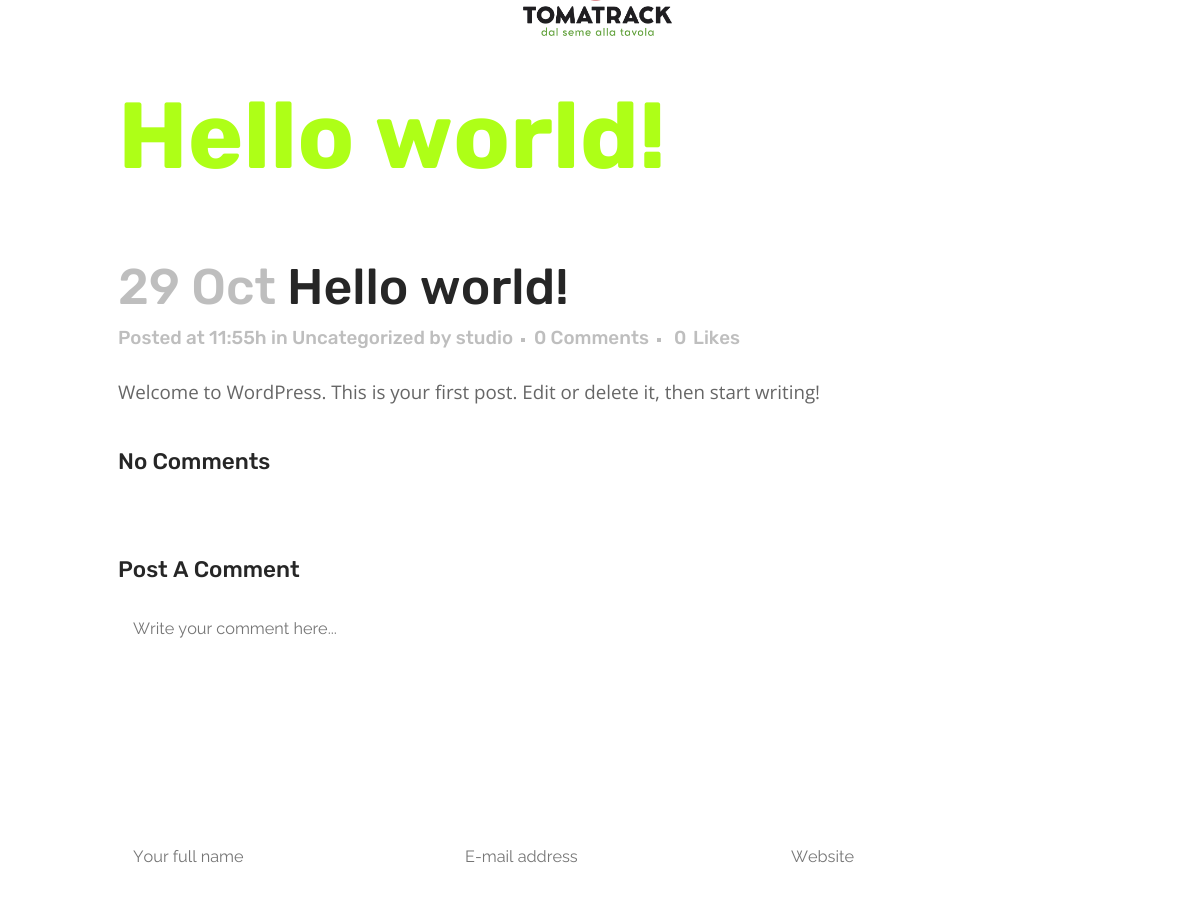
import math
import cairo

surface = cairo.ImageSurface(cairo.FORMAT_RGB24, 1195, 903)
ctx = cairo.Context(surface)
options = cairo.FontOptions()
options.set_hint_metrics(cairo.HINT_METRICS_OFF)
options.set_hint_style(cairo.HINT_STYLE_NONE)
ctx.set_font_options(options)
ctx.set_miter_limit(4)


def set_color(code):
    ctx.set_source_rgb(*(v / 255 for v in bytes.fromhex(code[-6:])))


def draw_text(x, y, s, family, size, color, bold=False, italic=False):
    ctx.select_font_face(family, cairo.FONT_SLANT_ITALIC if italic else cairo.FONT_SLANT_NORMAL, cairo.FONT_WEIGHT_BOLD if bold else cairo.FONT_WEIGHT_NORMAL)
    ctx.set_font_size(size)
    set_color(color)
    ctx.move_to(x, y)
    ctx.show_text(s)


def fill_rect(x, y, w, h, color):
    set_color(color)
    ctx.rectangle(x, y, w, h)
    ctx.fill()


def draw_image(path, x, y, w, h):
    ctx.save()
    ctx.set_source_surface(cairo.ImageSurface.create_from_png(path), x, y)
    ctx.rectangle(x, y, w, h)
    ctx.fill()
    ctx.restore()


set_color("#ffffff")
ctx.paint()
draw_image("assets/img1.png", 523, 0, 149, 36)
draw_text(118, 168, "Hello world!", "Rubik", 93.75, "#aeff17", bold=True)
draw_text(118, 304, "29 Oct", "Rubik Medium", 50, "#bebebe")
draw_text(287, 304, "Hello world!", "Rubik Medium", 50, "#262626")
draw_text(118, 344, "Posted at 11:55h in Uncategorized by studio", "Rubik Medium", 18.75, "#bebebe")
fill_rect(521, 338, 4, 4, "#bebebe")
draw_text(534, 344, "0 Comments", "Rubik Medium", 18.75, "#bebebe")
fill_rect(657, 338, 4, 4, "#bebebe")
draw_text(674, 344, "0", "Rubik Medium", 18.75, "#bebebe")
draw_text(693, 344, "Likes", "Rubik Medium", 18.75, "#bebebe")
draw_text(118, 399, "Welcome to WordPress. This is your first post. Edit or delete it, then start writing!", "Open Sans", 18.75, "#666666")
draw_text(118, 469, "No Comments", "Rubik Medium", 22.5, "#262626")
draw_text(118, 577, "Post A Comment", "Rubik Medium", 22.5, "#262626")
draw_text(133, 634, "Write your comment here...", "Raleway", 16.25, "#757575")
draw_text(133, 862, "Your full name", "Raleway", 16.25, "#757575")
draw_text(465, 862, "E-mail address", "Raleway", 16.25, "#757575")
draw_text(791, 862, "Website", "Raleway", 16.25, "#757575")
surface.write_to_png("output.png")
